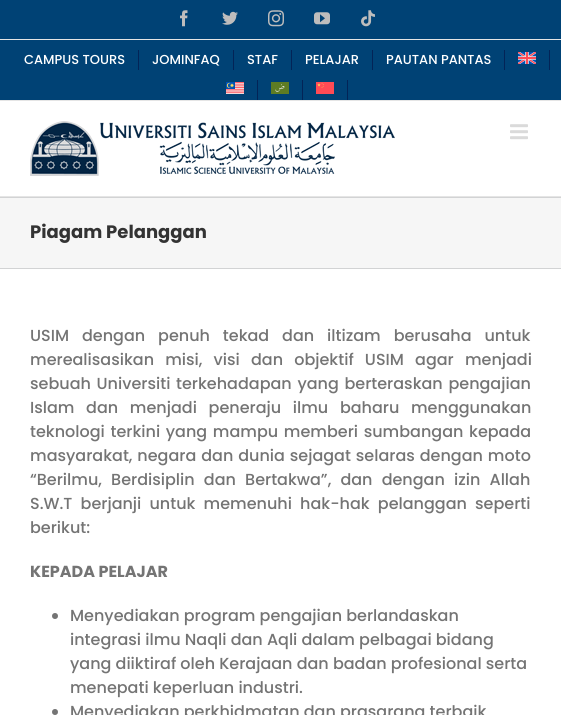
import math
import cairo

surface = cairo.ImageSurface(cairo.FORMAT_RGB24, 561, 715)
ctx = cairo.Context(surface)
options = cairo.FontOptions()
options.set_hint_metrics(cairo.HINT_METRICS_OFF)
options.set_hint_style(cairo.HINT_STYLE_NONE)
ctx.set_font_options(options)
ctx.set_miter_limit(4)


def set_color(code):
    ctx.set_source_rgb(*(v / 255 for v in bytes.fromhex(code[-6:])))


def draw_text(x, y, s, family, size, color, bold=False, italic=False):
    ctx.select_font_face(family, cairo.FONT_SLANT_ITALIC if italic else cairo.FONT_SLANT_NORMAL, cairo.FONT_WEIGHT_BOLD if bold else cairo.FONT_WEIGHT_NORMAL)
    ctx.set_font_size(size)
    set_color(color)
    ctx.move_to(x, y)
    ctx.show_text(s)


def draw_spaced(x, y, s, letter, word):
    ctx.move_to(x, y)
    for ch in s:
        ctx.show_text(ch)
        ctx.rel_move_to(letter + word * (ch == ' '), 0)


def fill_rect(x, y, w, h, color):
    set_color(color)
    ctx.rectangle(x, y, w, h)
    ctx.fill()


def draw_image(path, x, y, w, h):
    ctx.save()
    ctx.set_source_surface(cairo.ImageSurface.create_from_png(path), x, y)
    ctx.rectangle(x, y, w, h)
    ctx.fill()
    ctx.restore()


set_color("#ffffff")
ctx.paint()
fill_rect(0, 0, 561, 100, "#004275")
fill_rect(0, 100, 561, 1, "#e5e5e5")
fill_rect(0, 39, 561, 1, "#e5e5e5")
draw_image("assets/img1.png", 180, 10, 8, 17)
draw_image("assets/img2.png", 222, 11, 16, 14)
draw_image("assets/img3.png", 268, 10, 16, 17)
draw_image("assets/img4.png", 314, 12, 16, 13)
draw_image("assets/img5.png", 361, 10, 14, 17)
fill_rect(138, 50, 1, 20, "#032457")
draw_text(24, 64, "CAMPUS TOURS", "Poppins Medium", 13, "#ffffff")
fill_rect(233, 50, 1, 20, "#032457")
draw_text(152, 64, "JOMINFAQ", "Poppins Medium", 13, "#ffffff")
fill_rect(291, 50, 1, 20, "#032457")
draw_text(247, 64, "STAF", "Poppins Medium", 13, "#ffffff")
fill_rect(372, 50, 1, 20, "#032457")
draw_text(305, 64, "PELAJAR", "Poppins Medium", 13, "#ffffff")
fill_rect(504, 50, 1, 20, "#032457")
draw_text(386, 64, "PAUTAN PANTAS", "Poppins Medium", 13, "#ffffff")
fill_rect(549, 50, 1, 20, "#032457")
draw_image("assets/img6.png", 518, 52, 18, 12)
fill_rect(257, 80, 1, 20, "#032457")
draw_image("assets/img7.png", 226, 82, 18, 12)
fill_rect(302, 80, 1, 20, "#032457")
draw_image("assets/img8.png", 271, 82, 18, 12)
fill_rect(347, 80, 1, 20, "#032457")
draw_image("assets/img9.png", 316, 82, 18, 12)
fill_rect(0, 196, 561, 1, "#e5e5e5")
draw_image("assets/img10.png", 30, 121, 365, 55)
draw_image("assets/img11.png", 510, 124, 18, 16)
fill_rect(0, 198, 561, 70, "#f6f6f6")
fill_rect(0, 197, 561, 1, "#d2d3d4")
fill_rect(0, 268, 561, 1, "#d2d3d4")
draw_text(30, 238, "Piagam Pelanggan", "Poppins", 18, "#333333", bold=True)
ctx.select_font_face("Poppins Medium")
ctx.set_font_size(16)
set_color("#747474")
draw_spaced(30, 341, "USIM dengan penuh tekad dan iltizam berusaha untuk", 0, 8.75)
draw_spaced(30, 365, "merealisasikan misi, visi dan objektif USIM agar menjadi", 0, 7)
draw_spaced(30, 389, "sebuah Universiti terkehadapan yang berteraskan pengajian", 0, 1.5)
draw_spaced(30, 413, "Islam dan menjadi peneraju ilmu baharu menggunakan", 0, 7.5)
draw_spaced(30, 437, "teknologi terkini yang mampu memberi sumbangan kepada", 0, 1.5)
draw_spaced(30, 461, "masyarakat, negara dan dunia sejagat selaras dengan moto", 0, 0.75)
draw_spaced(30, 485, "“Berilmu, Berdisiplin dan Bertakwa”, dan dengan izin Allah", 0, 5)
draw_spaced(30, 509, "S.W.T berjanji untuk memenuhi hak-hak pelanggan seperti", 0, 4)
draw_text(30, 533, "berikut:", "Poppins Medium", 16, "#747474")
draw_text(30, 577, "KEPADA PELAJAR", "Poppins", 16, "#747474", bold=True)
ctx.new_path()
ctx.arc(55, 616, 3, 0, 2 * math.pi)
ctx.fill()
draw_text(70, 621, "Menyediakan program pengajian berlandaskan", "Poppins Medium", 16, "#747474")
draw_text(70, 645, "integrasi ilmu Naqli dan Aqli dalam pelbagai bidang", "Poppins Medium", 16, "#747474")
draw_text(70, 669, "yang diiktiraf oleh Kerajaan dan badan profesional serta", "Poppins Medium", 16, "#747474")
draw_text(70, 693, "menepati keperluan industri.", "Poppins Medium", 16, "#747474")
ctx.new_path()
ctx.arc(55, 712, 3, 0, 2 * math.pi)
ctx.fill()
draw_text(70, 717, "Menyediakan perkhidmatan dan prasarana terbaik", "Poppins Medium", 16, "#747474")
surface.write_to_png("output.png")
